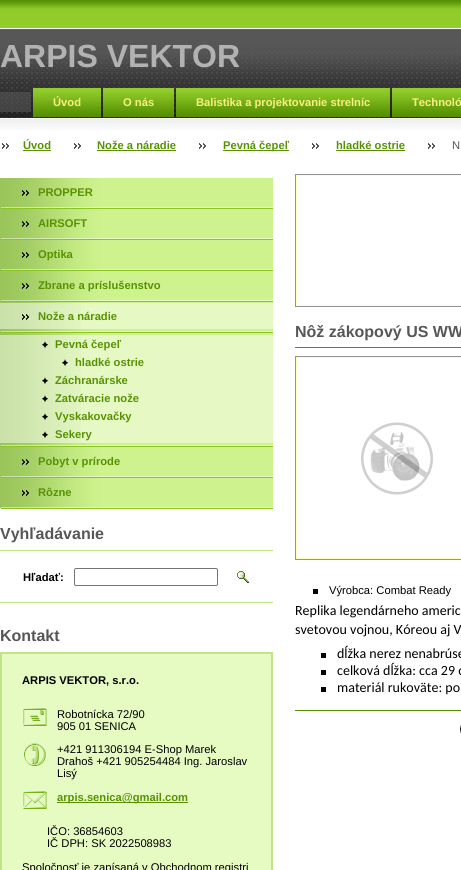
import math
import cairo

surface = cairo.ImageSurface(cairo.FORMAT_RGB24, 461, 870)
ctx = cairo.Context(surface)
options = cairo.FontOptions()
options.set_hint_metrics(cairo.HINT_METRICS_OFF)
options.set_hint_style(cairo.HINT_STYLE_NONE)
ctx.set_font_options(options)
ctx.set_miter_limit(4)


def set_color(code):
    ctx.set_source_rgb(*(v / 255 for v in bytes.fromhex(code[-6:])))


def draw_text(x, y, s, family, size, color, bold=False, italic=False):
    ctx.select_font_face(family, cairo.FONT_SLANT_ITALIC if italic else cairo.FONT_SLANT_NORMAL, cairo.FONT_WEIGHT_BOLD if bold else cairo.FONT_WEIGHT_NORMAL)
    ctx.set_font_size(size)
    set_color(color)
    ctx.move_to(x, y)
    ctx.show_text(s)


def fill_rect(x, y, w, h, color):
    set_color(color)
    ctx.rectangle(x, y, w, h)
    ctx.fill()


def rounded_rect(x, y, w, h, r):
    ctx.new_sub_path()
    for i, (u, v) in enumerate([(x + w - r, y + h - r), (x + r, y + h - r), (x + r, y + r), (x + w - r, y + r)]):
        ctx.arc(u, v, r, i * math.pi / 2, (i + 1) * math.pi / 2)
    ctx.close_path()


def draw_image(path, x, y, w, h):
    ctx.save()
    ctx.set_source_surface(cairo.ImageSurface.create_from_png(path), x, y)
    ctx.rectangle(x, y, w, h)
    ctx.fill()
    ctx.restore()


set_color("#ffffff")
ctx.paint()
draw_image("assets/img1.png", 0, 0, 461, 118)
draw_text(0, 67, "ARPIS VEKTOR", "Liberation Sans", 32, "#b2b2b2", bold=True)
draw_image("assets/img7.png", 0, 118, 461, 12)
draw_image("assets/img2.png", 31, 82, 430, 37)
draw_image("assets/img3.png", 33, 88, 68, 29)
draw_text(53, 106, "Úvod", "Liberation Sans", 11.2, "#f9ef7f", bold=True)
draw_image("assets/img4.png", 103, 88, 71, 29)
draw_text(123, 106, "O nás", "Liberation Sans", 11.2, "#f9ef7f", bold=True)
draw_image("assets/img5.png", 176, 88, 214, 29)
draw_text(196, 106, "Balistika a projektovanie strelníc", "Liberation Sans", 11.2, "#f9ef7f", bold=True)
draw_image("assets/img6.png", 392, 88, 69, 29)
draw_text(412, 106, "Technoló", "Liberation Sans", 11.2, "#f9ef7f", bold=True)
draw_image("assets/img8.png", 2, 143, 7, 6)
draw_text(23, 149, "Úvod", "Liberation Sans", 11.2, "#589203", bold=True)
fill_rect(23, 150, 28, 1, "#589203")
draw_image("assets/img8.png", 74, 143, 7, 6)
draw_text(97, 149, "Nože a náradie", "Liberation Sans", 11.2, "#589203", bold=True)
fill_rect(97, 150, 79, 1, "#589203")
draw_image("assets/img8.png", 199, 143, 7, 6)
fill_rect(223, 150, 66, 1, "#589203")
draw_text(223, 149, "Pevná čepeľ", "Liberation Sans", 11.2, "#589203", bold=True)
draw_image("assets/img8.png", 312, 143, 7, 6)
draw_text(336, 149, "hladké ostrie", "Liberation Sans", 11.2, "#589203", bold=True)
fill_rect(336, 150, 69, 1, "#589203")
draw_image("assets/img8.png", 428, 143, 7, 6)
draw_text(452, 149, "N", "Liberation Sans", 11.2, "#575757")
draw_image("assets/img9.png", 0, 178, 273, 327)
draw_image("assets/img10.png", 22, 190, 7, 6)
draw_text(38, 196, "PROPPER", "Liberation Sans", 11.2, "#589203", bold=True)
draw_image("assets/img11.png", 1, 207, 272, 2)
draw_image("assets/img10.png", 22, 221, 7, 6)
draw_text(38, 227, "AIRSOFT", "Liberation Sans", 11.2, "#589203", bold=True)
draw_image("assets/img11.png", 1, 238, 272, 2)
draw_image("assets/img10.png", 22, 252, 7, 6)
draw_text(38, 258, "Optika", "Liberation Sans", 11.2, "#589203", bold=True)
draw_image("assets/img11.png", 1, 269, 272, 2)
draw_image("assets/img10.png", 22, 283, 7, 6)
draw_text(38, 289, "Zbrane a príslušenstvo", "Liberation Sans", 11.2, "#589203", bold=True)
draw_image("assets/img11.png", 1, 300, 272, 2)
draw_image("assets/img13.png", 0, 303, 81, 26)
draw_image("assets/img12.png", 22, 314, 7, 6)
fill_rect(81, 303, 192, 26, "#e6f9c5")
draw_text(38, 320, "Nože a náradie", "Liberation Sans", 11.2, "#589203", bold=True)
draw_image("assets/img11.png", 1, 331, 272, 2)
draw_image("assets/img15.png", 0, 335, 81, 18)
draw_image("assets/img14.png", 42, 341, 6, 7)
fill_rect(81, 335, 192, 108, "#e6f9c5")
draw_text(55, 348, "Pevná čepeľ", "Liberation Sans", 11.2, "#589203", bold=True)
draw_image("assets/img15.png", 0, 353, 81, 18)
draw_image("assets/img16.png", 62, 359, 6, 7)
draw_text(75, 366, "hladké ostrie", "Liberation Sans", 11.2, "#589203", bold=True)
draw_image("assets/img15.png", 0, 371, 81, 18)
draw_image("assets/img14.png", 42, 377, 6, 7)
draw_text(55, 384, "Záchranárske", "Liberation Sans", 11.2, "#589203", bold=True)
draw_image("assets/img15.png", 0, 389, 81, 18)
draw_image("assets/img14.png", 42, 395, 6, 7)
draw_text(55, 402, "Zatváracie nože", "Liberation Sans", 11.2, "#589203", bold=True)
draw_image("assets/img15.png", 0, 407, 81, 18)
draw_image("assets/img14.png", 42, 413, 6, 7)
draw_text(55, 420, "Vyskakovačky", "Liberation Sans", 11.2, "#589203", bold=True)
draw_image("assets/img15.png", 0, 425, 81, 18)
draw_image("assets/img14.png", 42, 431, 6, 7)
draw_text(55, 438, "Sekery", "Liberation Sans", 11.2, "#589203", bold=True)
draw_image("assets/img11.png", 1, 445, 272, 2)
draw_image("assets/img10.png", 22, 459, 7, 6)
draw_text(38, 465, "Pobyt v prírode", "Liberation Sans", 11.2, "#589203", bold=True)
draw_image("assets/img11.png", 1, 476, 272, 2)
draw_image("assets/img10.png", 22, 490, 7, 6)
draw_text(38, 496, "Rôzne", "Liberation Sans", 11.2, "#589203", bold=True)
draw_image("assets/img17.png", 0, 505, 273, 4)
draw_text(0, 539, "Vyhľadávanie", "Liberation Sans", 16, "#575757", bold=True)
fill_rect(0, 550, 273, 1, "#bce37c")
fill_rect(0, 602, 273, 1, "#bce37c")
draw_text(23, 581, "Hľadať:", "Liberation Sans", 11.2, "#000000", bold=True)
rounded_rect(74.5, 568.5, 143, 17, 1.5)
set_color("#767676")
ctx.set_line_width(1)
ctx.stroke()
draw_image("assets/img18.png", 237, 571, 12, 12)
draw_text(0, 641, "Kontakt", "Liberation Sans", 16, "#575757", bold=True)
set_color("#e6fbc2")
ctx.rectangle(1, 653, 271, 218)
ctx.fill_preserve()
set_color("#c1e48a")
ctx.set_line_width(2)
ctx.stroke()
draw_text(22, 684, "ARPIS VEKTOR, s.r.o.", "Liberation Sans", 11.2, "#000000", bold=True)
draw_image("assets/img19.png", 23, 708, 24, 18)
draw_text(57, 718, "Robotnícka 72/90", "Liberation Sans", 11.2, "#000000")
draw_text(57, 730, "905 01 SENICA", "Liberation Sans", 11.2, "#000000")
draw_image("assets/img20.png", 24, 743, 22, 23)
draw_text(57, 753, "+421 911306194 E-Shop Marek", "Liberation Sans", 11.2, "#000000")
draw_text(57, 765, "Drahoš +421 905254484 Ing. Jaroslav", "Liberation Sans", 11.2, "#000000")
draw_text(57, 777, "Lisý", "Liberation Sans", 11.2, "#000000")
draw_image("assets/img21.png", 23, 791, 24, 18)
fill_rect(57, 802, 131, 1, "#589203")
draw_text(57, 801, "arpis.senica@gmail.com", "Liberation Sans", 11.2, "#589203", bold=True)
draw_text(47, 835, "IČO: 36854603", "Liberation Sans", 11.2, "#000000")
draw_text(47, 847, "IČ DPH: SK 2022508983", "Liberation Sans", 11.2, "#000000")
draw_text(22, 871, "Spoločnosť je zapísaná v Obchodnom registri", "Liberation Sans", 11.2, "#000000")
ctx.rectangle(295.5, 174.5, 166, 132)
set_color("#939393")
ctx.set_line_width(1)
ctx.stroke()
ctx.rectangle(296.5, 175.5, 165, 130)
set_color("#ffffbe")
ctx.stroke()
draw_text(295, 337, "Nôž zákopový US WW", "Liberation Sans", 16, "#575757", bold=True)
fill_rect(295, 347, 166, 1, "#569102")
fill_rect(295, 710, 166, 1, "#569102")
ctx.rectangle(295.5, 356.5, 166, 203)
set_color("#949496")
ctx.stroke()
ctx.rectangle(296.5, 357.5, 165, 201)
set_color("#ffffbe")
ctx.stroke()
draw_image("assets/img22.png", 361, 422, 72, 73)
fill_rect(313, 589, 5, 5, "#000000")
draw_text(329, 594, "Výrobca: Combat Ready", "Liberation Sans", 11.2, "#000000")
draw_text(295, 615, "Replika legendárneho americ", "Carlito", 14, "#000000")
draw_text(295, 634, "svetovou vojnou, Kóreou aj V", "Carlito", 14, "#000000")
fill_rect(321, 653, 5, 5, "#000000")
draw_text(337, 658, "dĺžka nerez nenabrúse", "Carlito", 14, "#000000")
fill_rect(321, 670, 5, 5, "#000000")
draw_text(337, 675, "celková dĺžka: cca 29 c", "Carlito", 14, "#000000")
fill_rect(321, 687, 5, 5, "#000000")
draw_text(337, 692, "materiál rukoväte: po", "Carlito", 14, "#000000")
draw_image("assets/img23.png", 460, 725, 1, 9)
surface.write_to_png("output.png")
